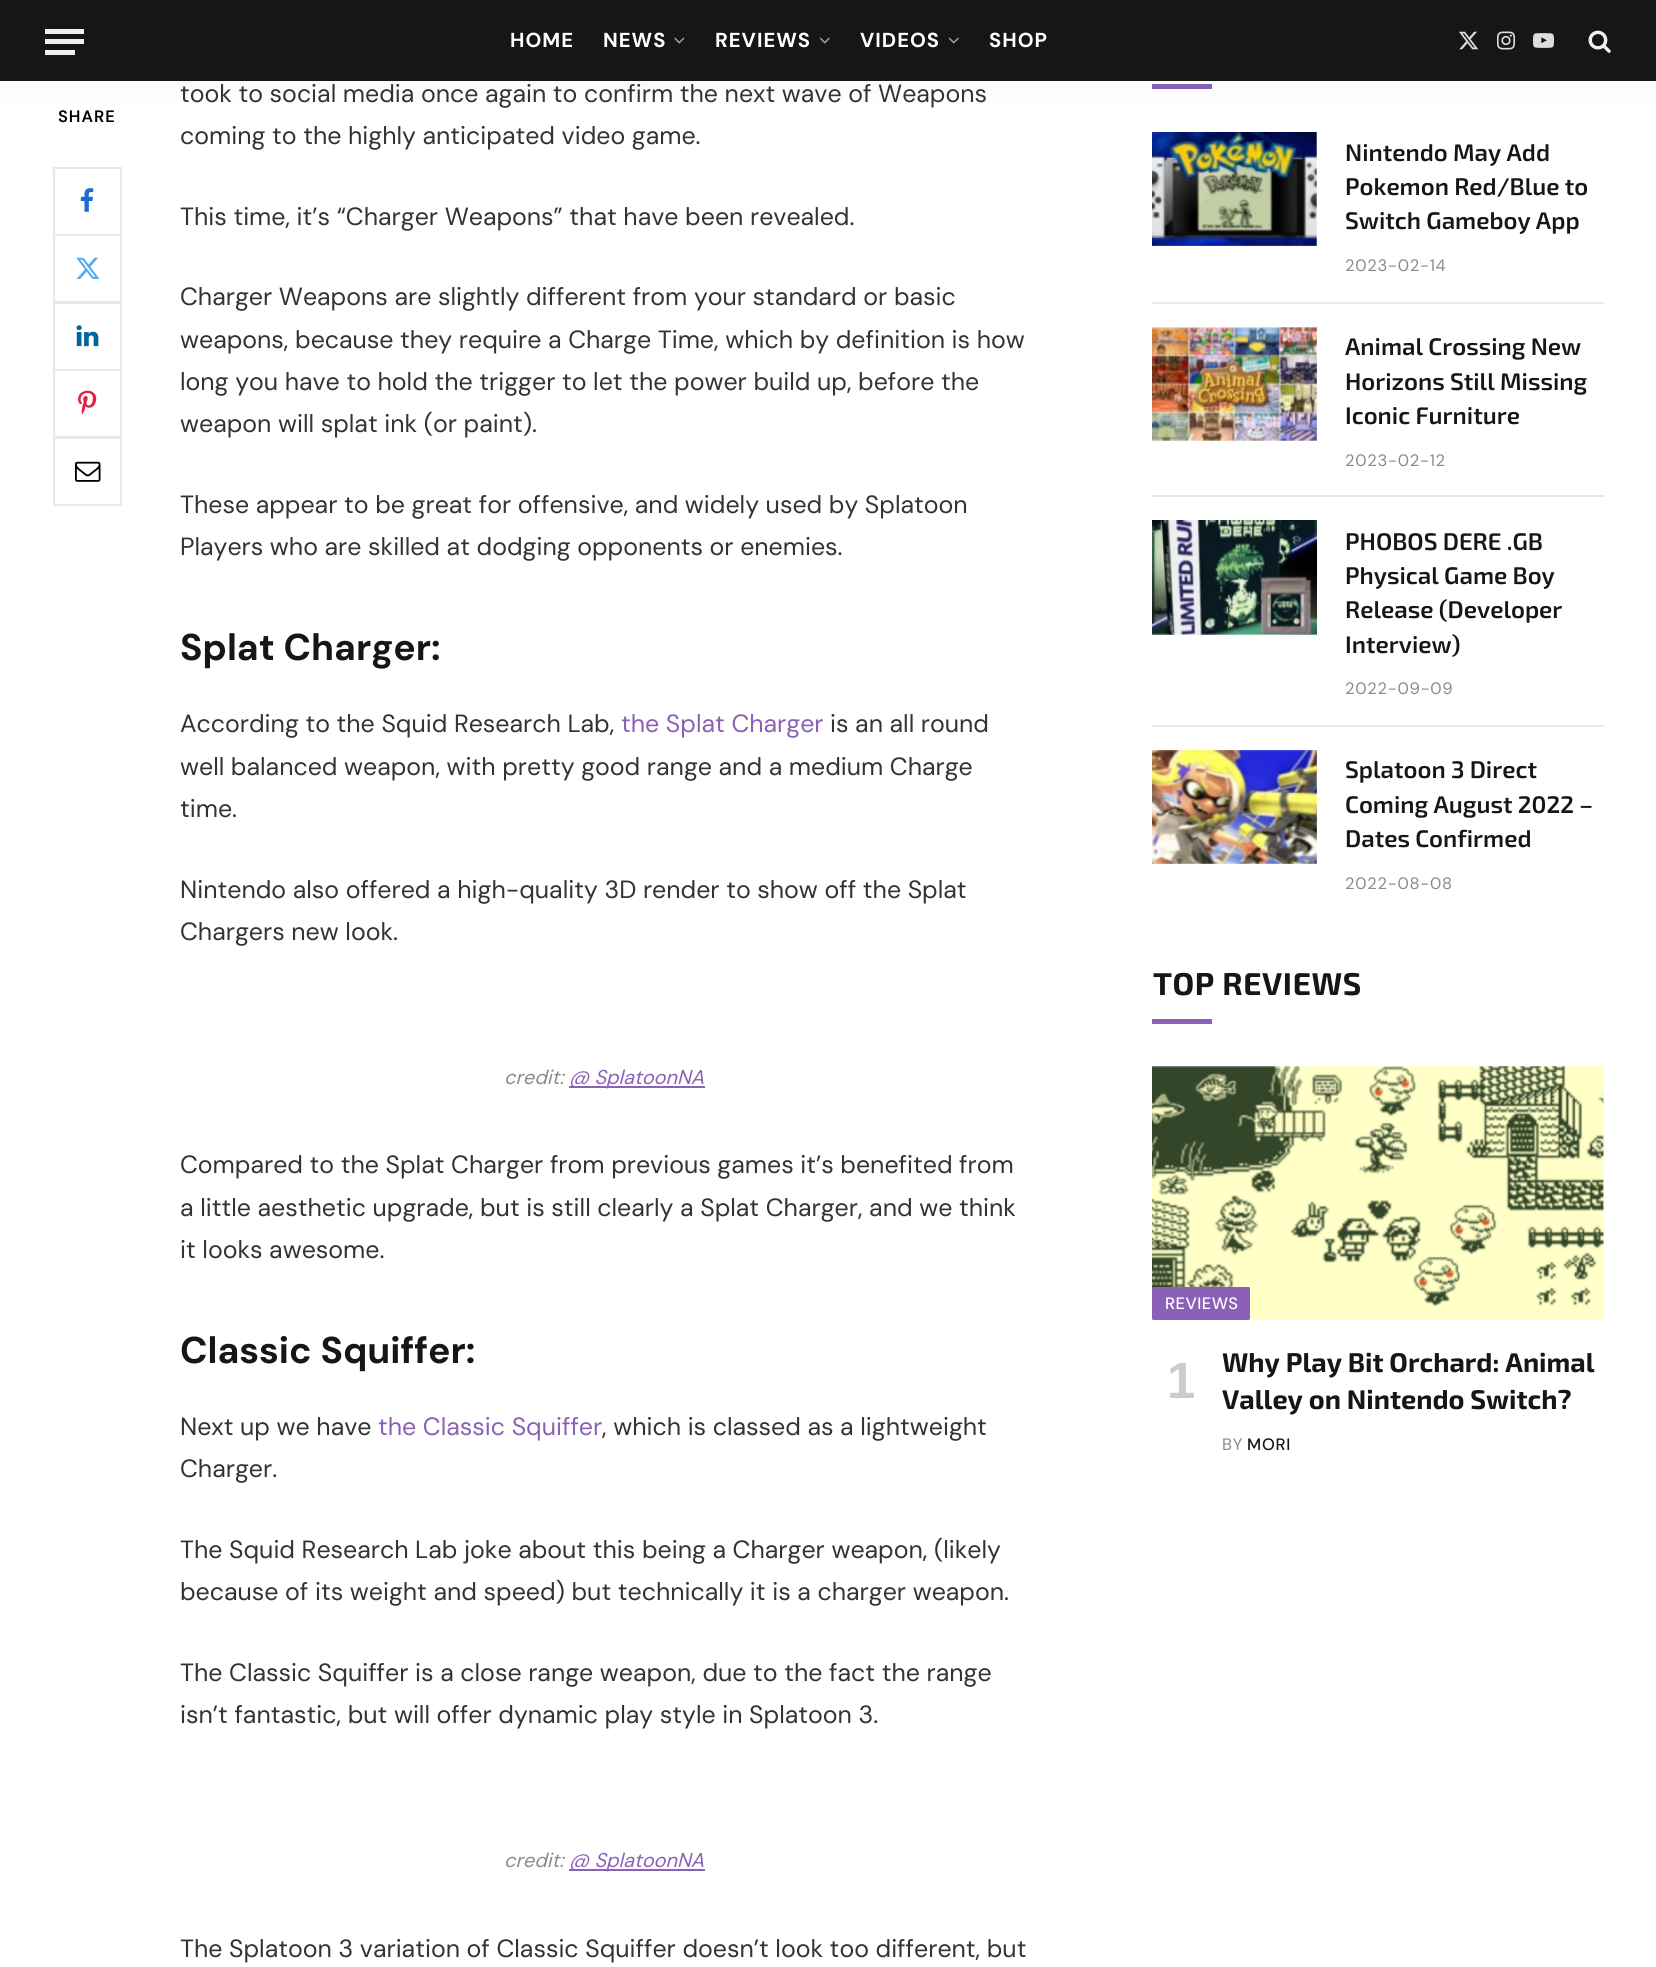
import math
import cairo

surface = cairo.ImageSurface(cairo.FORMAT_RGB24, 1656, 1967)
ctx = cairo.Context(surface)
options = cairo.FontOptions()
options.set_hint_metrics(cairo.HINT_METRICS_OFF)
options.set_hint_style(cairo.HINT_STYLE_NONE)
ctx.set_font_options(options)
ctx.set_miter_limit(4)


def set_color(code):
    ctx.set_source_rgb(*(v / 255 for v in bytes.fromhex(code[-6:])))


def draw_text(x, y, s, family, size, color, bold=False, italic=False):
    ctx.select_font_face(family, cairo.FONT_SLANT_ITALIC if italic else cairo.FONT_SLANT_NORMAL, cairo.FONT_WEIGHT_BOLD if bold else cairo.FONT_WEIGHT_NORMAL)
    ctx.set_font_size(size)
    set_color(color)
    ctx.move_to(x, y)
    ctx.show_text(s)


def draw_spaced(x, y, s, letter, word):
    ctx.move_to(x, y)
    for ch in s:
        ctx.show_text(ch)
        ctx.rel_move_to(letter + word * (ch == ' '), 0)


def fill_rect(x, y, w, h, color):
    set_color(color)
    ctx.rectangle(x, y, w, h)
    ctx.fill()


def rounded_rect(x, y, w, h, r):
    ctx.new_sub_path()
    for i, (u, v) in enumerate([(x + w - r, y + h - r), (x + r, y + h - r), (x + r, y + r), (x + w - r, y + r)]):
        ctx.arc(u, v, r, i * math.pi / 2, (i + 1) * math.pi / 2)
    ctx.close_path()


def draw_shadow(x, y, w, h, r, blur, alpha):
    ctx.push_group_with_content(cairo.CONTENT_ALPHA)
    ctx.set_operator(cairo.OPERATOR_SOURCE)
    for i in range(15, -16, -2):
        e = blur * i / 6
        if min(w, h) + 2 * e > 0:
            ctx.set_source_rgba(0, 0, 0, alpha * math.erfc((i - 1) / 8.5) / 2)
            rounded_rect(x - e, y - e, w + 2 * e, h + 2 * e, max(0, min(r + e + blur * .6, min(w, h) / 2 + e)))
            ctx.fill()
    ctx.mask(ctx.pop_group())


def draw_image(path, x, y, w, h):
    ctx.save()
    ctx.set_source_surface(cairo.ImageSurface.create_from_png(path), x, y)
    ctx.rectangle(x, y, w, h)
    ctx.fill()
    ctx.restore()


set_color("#ffffff")
ctx.paint()
fill_rect(1152, 84, 60, 5, "#8a61b6")
set_color("#000000")
draw_shadow(0, 0, 1656, 81, 0, 15, 0.05)
fill_rect(0, 0, 1656, 81, "#161616")
fill_rect(45, 50, 30, 5, "#f0f0f0")
fill_rect(45, 29, 39, 5, "#f0f0f0")
fill_rect(45, 39, 39, 5, "#f0f0f0")
ctx.select_font_face("DM Sans", cairo.FONT_SLANT_NORMAL, cairo.FONT_WEIGHT_BOLD)
ctx.set_font_size(20.25)
set_color("#ffffff")
draw_spaced(510, 47, "HOME", 1, 0)
draw_spaced(603, 47, "NEWS", 1, 0)
draw_image("assets/img1.png", 674, 37, 11, 7)
draw_spaced(715, 47, "REVIEWS", 1, 0)
draw_image("assets/img2.png", 819, 37, 11, 7)
draw_spaced(860, 47, "VIDEOS", 1, 0)
draw_image("assets/img2.png", 948, 37, 11, 7)
draw_spaced(989, 47, "SHOP", 1, 0)
draw_image("assets/img3.png", 1459, 31, 20, 19)
draw_image("assets/img4.png", 1497, 31, 18, 19)
draw_image("assets/img5.png", 1533, 33, 21, 15)
draw_image("assets/img6.png", 1588, 30, 23, 23)
ctx.select_font_face("DM Sans SemiBold")
ctx.set_font_size(16.5)
set_color("#000000")
draw_spaced(58, 122, "SHARE", 1, 0)
ctx.rectangle(54, 168, 67, 67)
set_color("#e8e8e8")
ctx.stroke()
draw_image("assets/img7.png", 80, 188, 14, 24)
ctx.rectangle(54, 235, 67, 67)
ctx.stroke()
draw_image("assets/img8.png", 76, 257, 24, 22)
ctx.rectangle(54, 303, 67, 67)
ctx.stroke()
draw_image("assets/img9.png", 76, 325, 23, 22)
ctx.rectangle(54, 370, 67, 67)
ctx.stroke()
draw_image("assets/img10.png", 78, 390, 19, 25)
ctx.rectangle(54, 438, 67, 67)
ctx.stroke()
draw_image("assets/img11.png", 75, 461, 26, 21)
draw_text(180, 102, "took to social media once again to confirm the next wave of Weapons", "DM Sans", 24.9, "#333333")
draw_text(180, 144, "coming to the highly anticipated video game.", "DM Sans", 24.9, "#333333")
draw_text(180, 225, "This time, it’s “Charger Weapons” that have been revealed.", "DM Sans", 24.9, "#333333")
draw_text(180, 305, "Charger Weapons are slightly different from your standard or basic", "DM Sans", 24.9, "#333333")
draw_text(180, 348, "weapons, because they require a Charge Time, which by definition is how", "DM Sans", 24.9, "#333333")
draw_text(180, 390, "long you have to hold the trigger to let the power build up, before the", "DM Sans", 24.9, "#333333")
draw_text(180, 432, "weapon will splat ink (or paint).", "DM Sans", 24.9, "#333333")
draw_text(180, 513, "These appear to be great for offensive, and widely used by Splatoon", "DM Sans", 24.9, "#333333")
draw_text(180, 555, "Players who are skilled at dodging opponents or enemies.", "DM Sans", 24.9, "#333333")
draw_text(180, 660, "Splat Charger:", "DM Sans", 37.25, "#161616", bold=True)
draw_text(180, 732, "According to the Squid Research Lab,", "DM Sans", 24.9, "#333333")
draw_text(621, 732, "the Splat Charger", "DM Sans", 24.9, "#8a61b6")
draw_text(830, 732, "is an all round", "DM Sans", 24.9, "#333333")
draw_text(180, 775, "well balanced weapon, with pretty good range and a medium Charge", "DM Sans", 24.9, "#333333")
draw_text(180, 817, "time.", "DM Sans", 24.9, "#333333")
draw_text(180, 898, "Nintendo also offered a high-quality 3D render to show off the Splat", "DM Sans", 24.9, "#333333")
draw_text(180, 940, "Chargers new look.", "DM Sans", 24.9, "#333333")
draw_text(504, 1084, "credit:", "DM Sans", 20, "#8a8a8a", italic=True)
fill_rect(569, 1086, 136, 2, "#8a61b6")
draw_text(569, 1084, "@ SplatoonNA", "DM Sans", 20, "#8a61b6", italic=True)
draw_text(180, 1173, "Compared to the Splat Charger from previous games it’s benefited from", "DM Sans", 24.9, "#333333")
draw_text(180, 1216, "a little aesthetic upgrade, but is still clearly a Splat Charger, and we think", "DM Sans", 24.9, "#333333")
draw_text(180, 1258, "it looks awesome.", "DM Sans", 24.9, "#333333")
draw_text(180, 1363, "Classic Squiffer:", "DM Sans", 37.25, "#161616", bold=True)
draw_text(180, 1435, "Next up we have", "DM Sans", 24.9, "#333333")
draw_text(378, 1435, "the Classic Squiffer", "DM Sans", 24.9, "#8a61b6")
draw_text(602, 1435, ", which is classed as a lightweight", "DM Sans", 24.9, "#333333")
draw_text(180, 1477, "Charger.", "DM Sans", 24.9, "#333333")
draw_text(180, 1558, "The Squid Research Lab joke about this being a Charger weapon, (likely", "DM Sans", 24.9, "#333333")
draw_text(180, 1600, "because of its weight and speed) but technically it is a charger weapon.", "DM Sans", 24.9, "#333333")
draw_text(180, 1681, "The Classic Squiffer is a close range weapon, due to the fact the range", "DM Sans", 24.9, "#333333")
draw_text(180, 1723, "isn’t fantastic, but will offer dynamic play style in Splatoon 3.", "DM Sans", 24.9, "#333333")
draw_text(504, 1867, "credit:", "DM Sans", 20, "#8a8a8a", italic=True)
fill_rect(569, 1869, 136, 2, "#8a61b6")
draw_text(569, 1867, "@ SplatoonNA", "DM Sans", 20, "#8a61b6", italic=True)
draw_text(180, 1957, "The Splatoon 3 variation of Classic Squiffer doesn’t look too different, but", "DM Sans", 24.9, "#333333")
draw_image("assets/img12.png", 1152, 132, 165, 114)
draw_text(1345, 161, "Nintendo May Add", "Exo 2 SemiBold", 24, "#161616")
draw_text(1345, 195, "Pokemon Red/Blue to", "Exo 2 SemiBold", 24, "#161616")
draw_text(1345, 229, "Switch Gameboy App", "Exo 2 SemiBold", 24, "#161616")
ctx.select_font_face("DM Sans")
ctx.set_font_size(16.5)
set_color("#8a8a8a")
draw_spaced(1345, 271, "2023-02-14", 0.75, 0)
fill_rect(1152, 302, 452, 2, "#e8e8e8")
draw_image("assets/img13.png", 1152, 327, 165, 114)
draw_text(1345, 355, "Animal Crossing New", "Exo 2 SemiBold", 24, "#161616")
draw_text(1345, 390, "Horizons Still Missing", "Exo 2 SemiBold", 24, "#161616")
draw_text(1345, 424, "Iconic Furniture", "Exo 2 SemiBold", 24, "#161616")
ctx.select_font_face("DM Sans")
ctx.set_font_size(16.5)
set_color("#8a8a8a")
draw_spaced(1345, 466, "2023-02-12", 0.75, 0)
fill_rect(1152, 495, 452, 2, "#e8e8e8")
draw_image("assets/img14.png", 1152, 520, 165, 115)
draw_text(1345, 550, "PHOBOS DERE .GB", "Exo 2 SemiBold", 24, "#161616")
draw_text(1345, 584, "Physical Game Boy", "Exo 2 SemiBold", 24, "#161616")
draw_text(1345, 618, "Release (Developer", "Exo 2 SemiBold", 24, "#161616")
draw_text(1345, 653, "Interview)", "Exo 2 SemiBold", 24, "#161616")
ctx.select_font_face("DM Sans")
ctx.set_font_size(16.5)
set_color("#8a8a8a")
draw_spaced(1345, 694, "2022-09-09", 0.75, 0)
fill_rect(1152, 725, 452, 2, "#e8e8e8")
draw_image("assets/img15.png", 1152, 750, 165, 114)
draw_text(1345, 778, "Splatoon 3 Direct", "Exo 2 SemiBold", 24, "#161616")
draw_text(1345, 813, "Coming August 2022 –", "Exo 2 SemiBold", 24, "#161616")
draw_text(1345, 847, "Dates Confirmed", "Exo 2 SemiBold", 24, "#161616")
ctx.select_font_face("DM Sans")
ctx.set_font_size(16.5)
set_color("#8a8a8a")
draw_spaced(1345, 889, "2022-08-08", 0.75, 0)
ctx.select_font_face("Exo 2", cairo.FONT_SLANT_NORMAL, cairo.FONT_WEIGHT_BOLD)
ctx.set_font_size(31.5)
set_color("#161616")
draw_spaced(1153, 995, "TOP REVIEWS", 0.6, 0)
fill_rect(1152, 1019, 60, 5, "#8a61b6")
draw_image("assets/img16.png", 1152, 1066, 452, 254)
rounded_rect(1152, 1287, 98, 33, 1.5)
ctx.fill()
ctx.select_font_face("DM Sans Medium")
ctx.set_font_size(16.5)
set_color("#ffffff")
draw_spaced(1165, 1309, "REVIEWS", 0.5, 0)
draw_text(1167, 1398, "1", "Liberation Sans", 51, "#cccccc", bold=True)
draw_text(1222, 1372, "Why Play Bit Orchard: Animal", "Exo 2", 27, "#161616", bold=True)
draw_text(1222, 1409, "Valley on Nintendo Switch?", "Exo 2", 27, "#161616", bold=True)
ctx.select_font_face("DM Sans")
ctx.set_font_size(16.5)
set_color("#8a8a8a")
draw_spaced(1222, 1450, "BY", 0.75, 0)
ctx.select_font_face("DM Sans Medium")
set_color("#161616")
draw_spaced(1247, 1450, "MORI", 0.75, 0)
surface.write_to_png("output.png")
